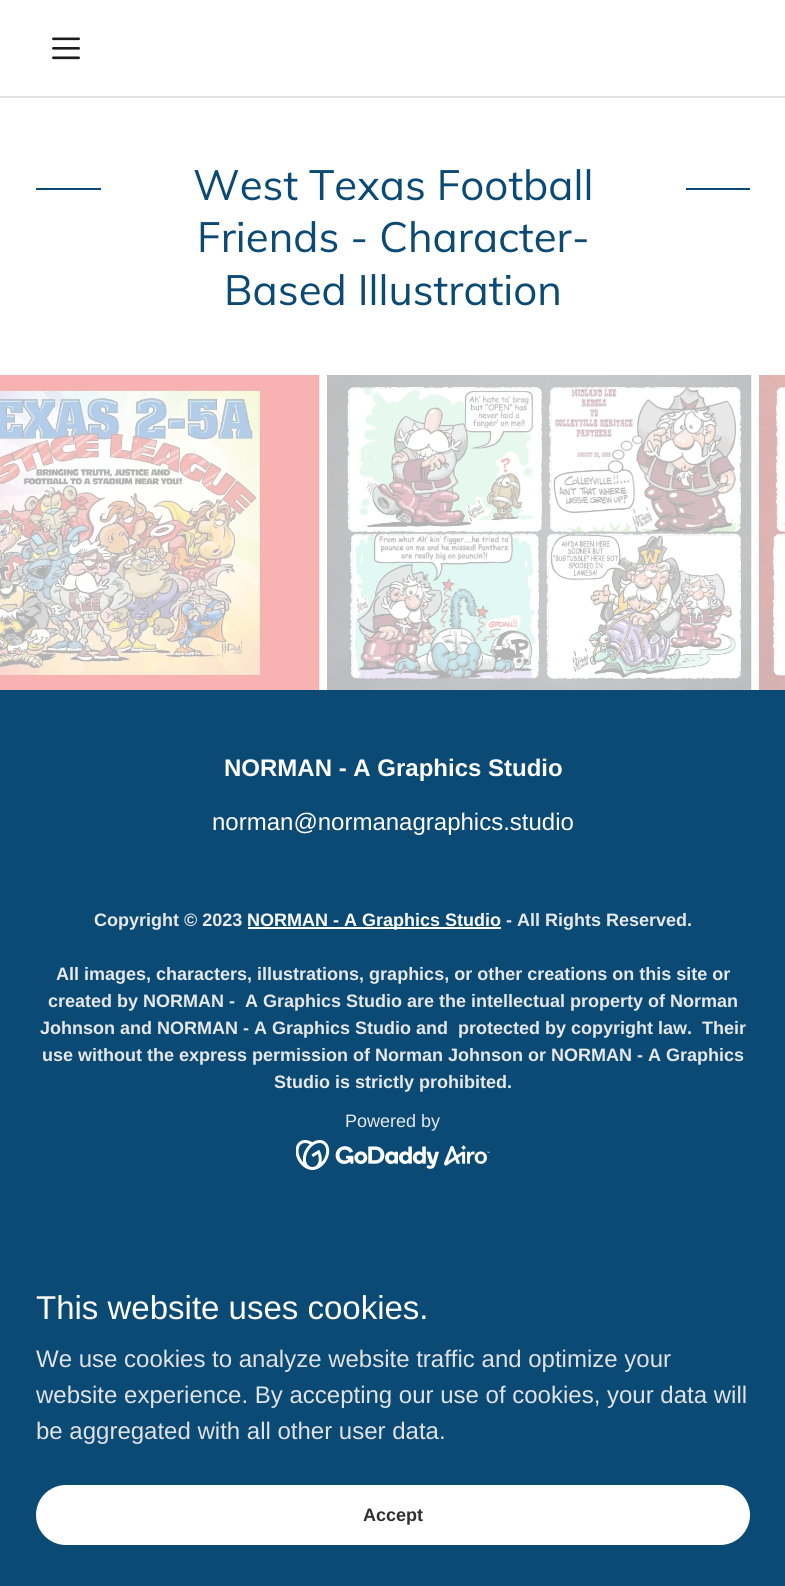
import math
import cairo

surface = cairo.ImageSurface(cairo.FORMAT_RGB24, 785, 1586)
ctx = cairo.Context(surface)
options = cairo.FontOptions()
options.set_hint_metrics(cairo.HINT_METRICS_OFF)
options.set_hint_style(cairo.HINT_STYLE_NONE)
ctx.set_font_options(options)
ctx.set_miter_limit(4)


def set_color(code):
    ctx.set_source_rgb(*(v / 255 for v in bytes.fromhex(code[-6:])))


def draw_text(x, y, s, family, size, color, bold=False, italic=False):
    ctx.select_font_face(family, cairo.FONT_SLANT_ITALIC if italic else cairo.FONT_SLANT_NORMAL, cairo.FONT_WEIGHT_BOLD if bold else cairo.FONT_WEIGHT_NORMAL)
    ctx.set_font_size(size)
    set_color(color)
    ctx.move_to(x, y)
    ctx.show_text(s)


def fill_rect(x, y, w, h, color):
    set_color(color)
    ctx.rectangle(x, y, w, h)
    ctx.fill()


def rounded_rect(x, y, w, h, r):
    ctx.new_sub_path()
    for i, (u, v) in enumerate([(x + w - r, y + h - r), (x + r, y + h - r), (x + r, y + r), (x + w - r, y + r)]):
        ctx.arc(u, v, r, i * math.pi / 2, (i + 1) * math.pi / 2)
    ctx.close_path()


def draw_image(path, x, y, w, h):
    ctx.save()
    ctx.set_source_surface(cairo.ImageSurface.create_from_png(path), x, y)
    ctx.rectangle(x, y, w, h)
    ctx.fill()
    ctx.restore()


set_color("#0a4a74")
ctx.paint()
fill_rect(0, 0, 785, 96, "#ffffff")
draw_image("assets/img1.png", 52, 37, 28, 23)
fill_rect(0, 96, 785, 2, "#e2e2e2")
fill_rect(0, 98, 785, 592, "#ffffff")
fill_rect(36, 188, 65, 2, "#0a4a74")
draw_text(193, 200, "West Texas Football", "Muli", 42, "#0a4a74")
fill_rect(686, 188, 64, 2, "#0a4a74")
draw_text(197, 252, "Friends - Character-", "Muli", 42, "#0a4a74")
draw_text(224, 305, "Based Illustration", "Muli", 42, "#0a4a74")
draw_image("assets/img2.png", 0, 375, 320, 315)
draw_image("assets/img3.png", 327, 375, 425, 315)
draw_image("assets/img4.png", 759, 375, 26, 315)
draw_text(224, 776, "NORMAN - A Graphics Studio", "Liberation Sans", 24, "#ffffff", bold=True)
draw_text(212, 830, "norman@normanagraphics.studio", "Liberation Sans", 24, "#ffffff")
draw_text(94, 926, "Copyright © 2023", "Liberation Sans", 18, "#e7e8eb", bold=True)
fill_rect(248, 927, 253, 2, "#ffffff")
draw_text(247, 926, "NORMAN - A Graphics Studio", "Liberation Sans", 18, "#ffffff", bold=True)
draw_text(506, 926, "- All Rights Reserved.", "Liberation Sans", 18, "#e7e8eb", bold=True)
draw_text(56, 980, "All images, characters, illustrations, graphics, or other creations on this site or", "Liberation Sans", 18, "#e7e8eb", bold=True)
draw_text(48, 1007, "created by NORMAN -  A Graphics Studio are the intellectual property of Norman", "Liberation Sans", 18, "#e7e8eb", bold=True)
draw_text(40, 1034, "Johnson and NORMAN - A Graphics Studio and  protected by copyright law.  Their", "Liberation Sans", 18, "#e7e8eb", bold=True)
draw_text(42, 1061, "use without the express permission of Norman Johnson or NORMAN - A Graphics", "Liberation Sans", 18, "#e7e8eb", bold=True)
draw_text(274, 1088, "Studio is strictly prohibited.", "Liberation Sans", 18, "#e7e8eb", bold=True)
draw_text(345, 1127, "Powered by", "Liberation Sans", 18, "#e7e8eb")
draw_image("assets/img5.png", 296, 1140, 194, 30)
draw_text(36, 1319, "This website uses cookies.", "Liberation Sans", 33, "#ffffff")
draw_text(36, 1367, "We use cookies to analyze website traffic and optimize your", "Liberation Sans", 24, "#e0e2e6")
draw_text(36, 1403, "website experience. By accepting our use of cookies, your data will", "Liberation Sans", 24, "#e0e2e6")
draw_text(36, 1439, "be aggregated with all other user data.", "Liberation Sans", 24, "#e0e2e6")
set_color("#ffffff")
rounded_rect(36, 1485, 714, 60, 30)
ctx.fill()
draw_text(363, 1521, "Accept", "Liberation Sans", 18, "#303030", bold=True)
surface.write_to_png("output.png")
